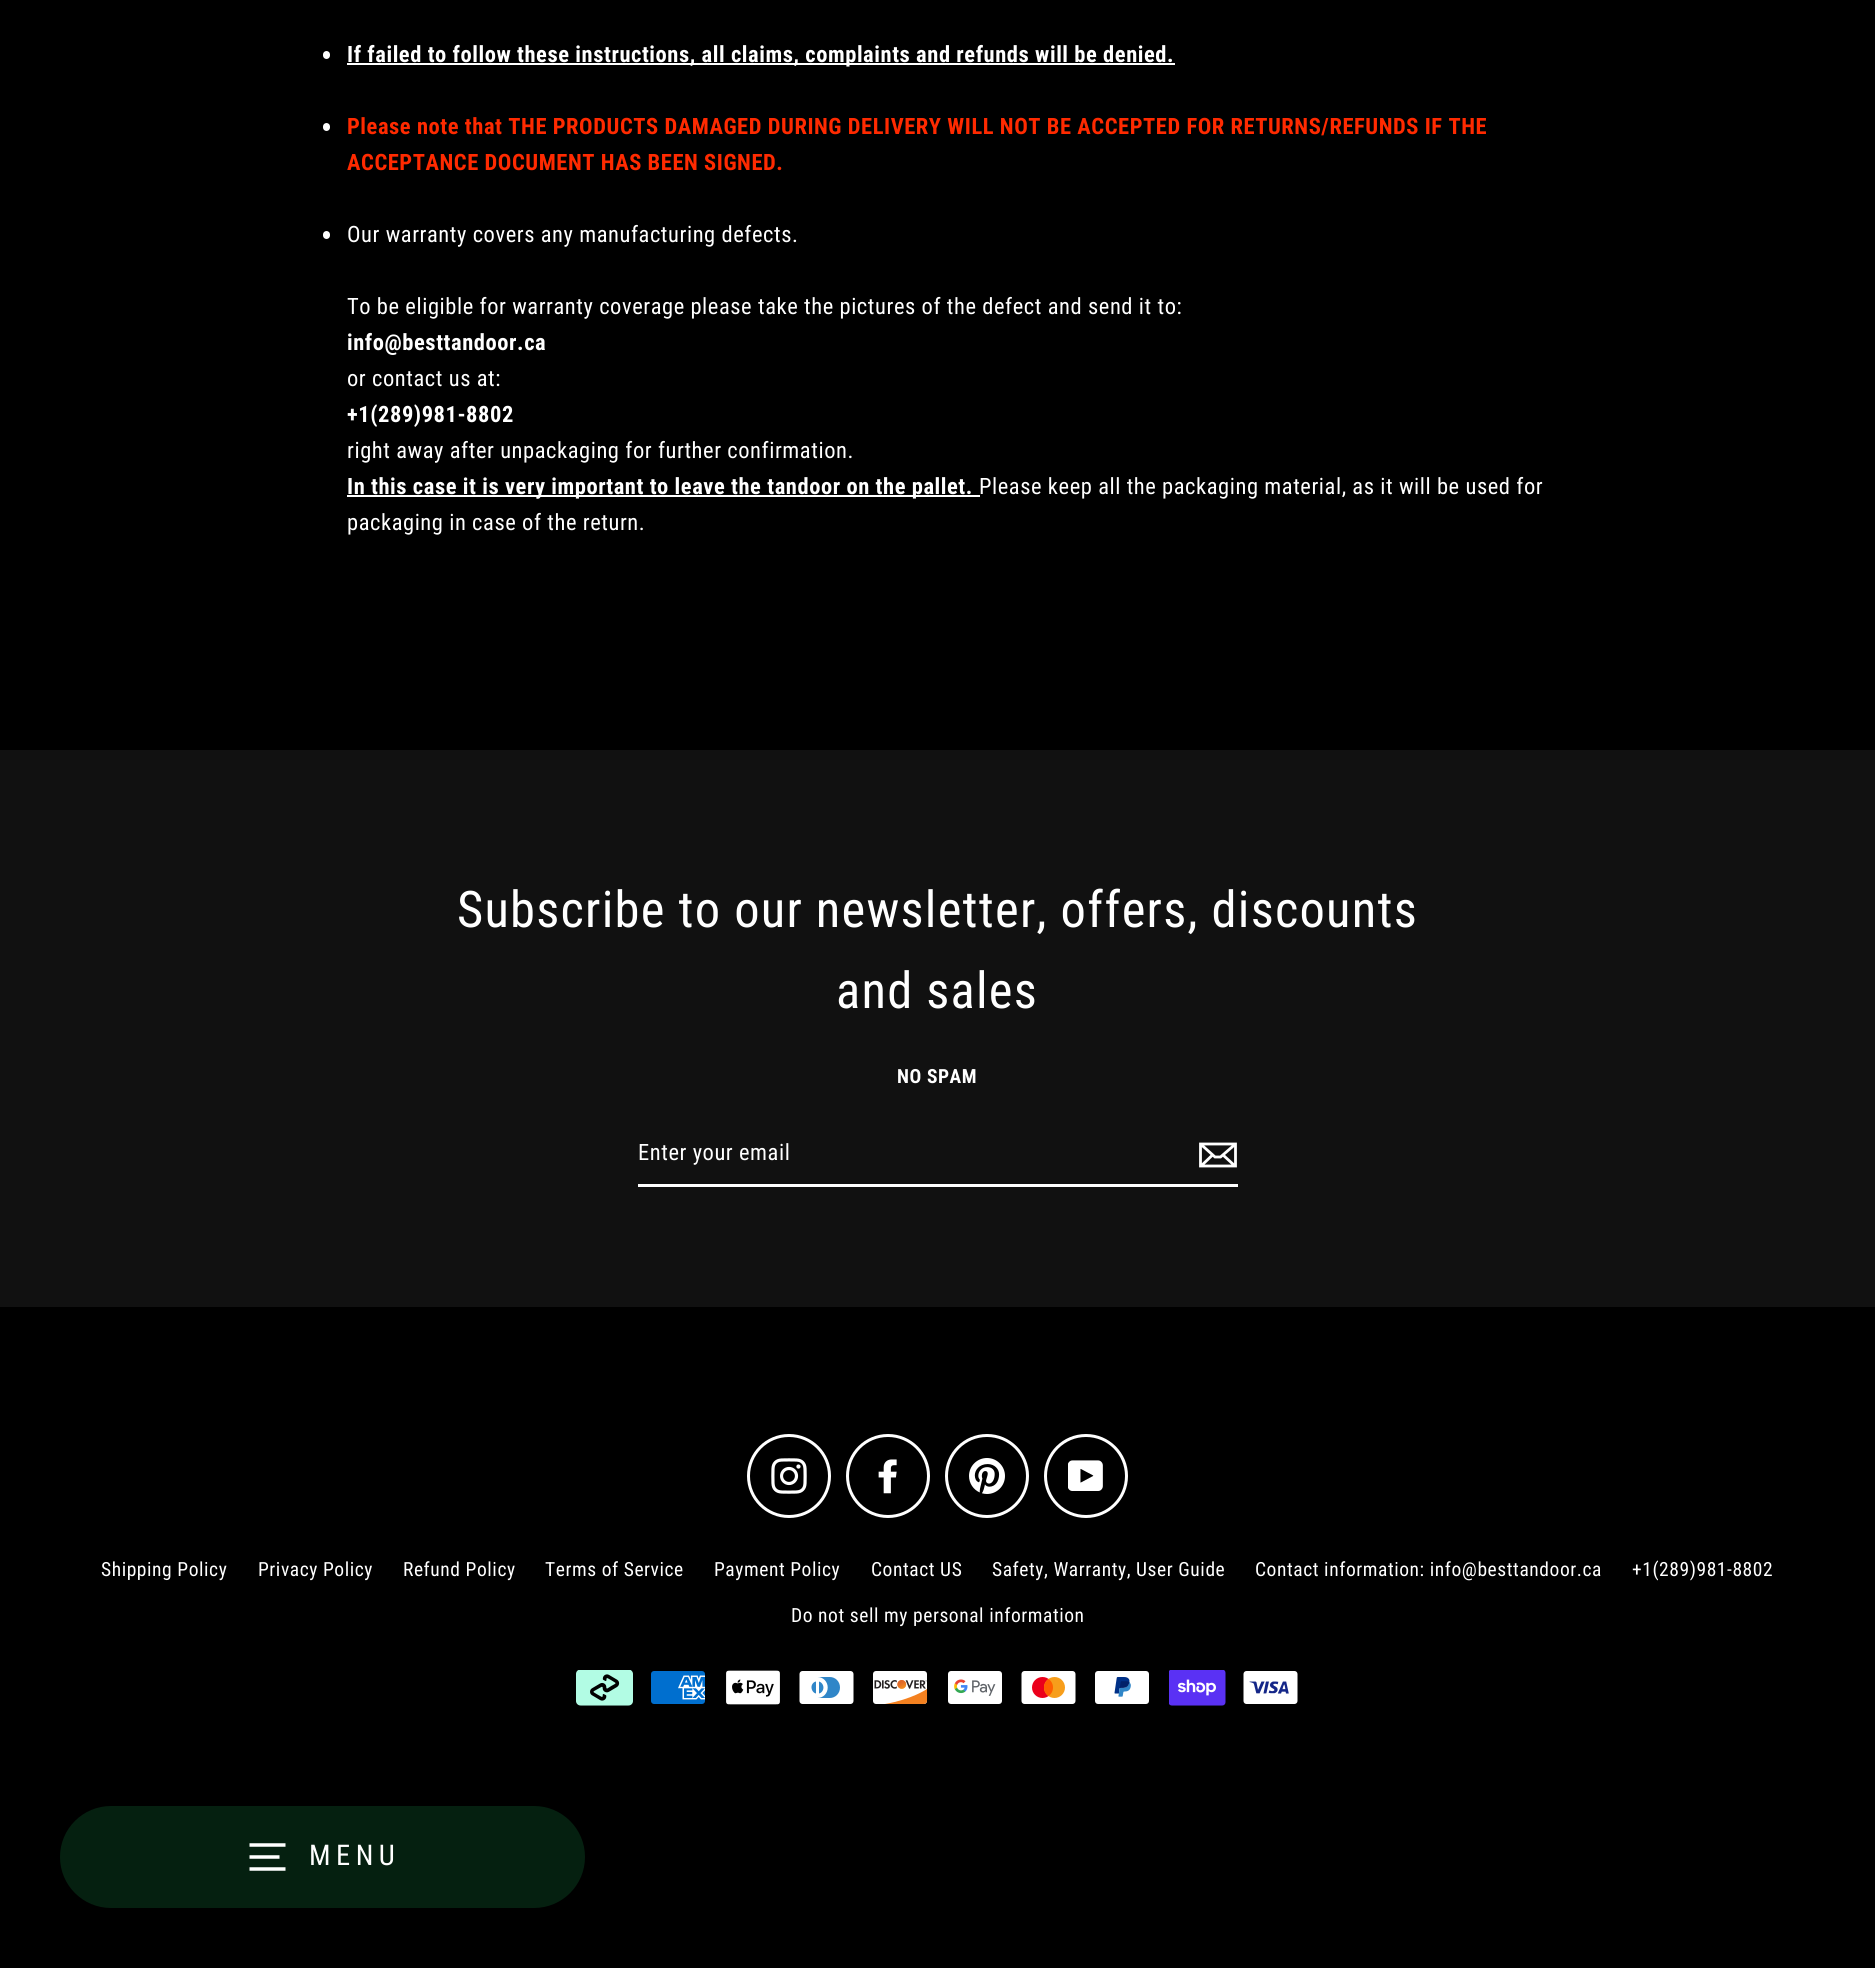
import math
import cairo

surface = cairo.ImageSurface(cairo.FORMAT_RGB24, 1875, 1968)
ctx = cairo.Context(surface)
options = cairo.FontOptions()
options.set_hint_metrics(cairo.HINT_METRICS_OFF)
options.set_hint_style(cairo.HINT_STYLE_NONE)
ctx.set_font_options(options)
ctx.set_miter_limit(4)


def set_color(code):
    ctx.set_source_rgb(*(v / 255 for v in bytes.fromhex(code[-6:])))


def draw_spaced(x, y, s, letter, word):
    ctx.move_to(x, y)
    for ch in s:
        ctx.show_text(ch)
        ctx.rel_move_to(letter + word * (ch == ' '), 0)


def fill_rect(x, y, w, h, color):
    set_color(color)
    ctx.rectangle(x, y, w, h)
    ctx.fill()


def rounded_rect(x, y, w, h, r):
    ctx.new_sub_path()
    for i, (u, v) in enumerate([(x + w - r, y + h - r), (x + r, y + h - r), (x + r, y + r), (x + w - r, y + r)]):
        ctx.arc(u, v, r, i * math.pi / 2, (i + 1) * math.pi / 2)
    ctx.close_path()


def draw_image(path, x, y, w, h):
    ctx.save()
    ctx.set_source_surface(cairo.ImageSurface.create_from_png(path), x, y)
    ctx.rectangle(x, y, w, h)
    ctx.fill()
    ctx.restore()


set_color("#000000")
ctx.paint()
set_color("#ffffff")
rounded_rect(323, 51, 7, 8, 3.5)
ctx.fill()
fill_rect(347, 63, 828, 2, "#ffffff")
ctx.select_font_face("Roboto Condensed", cairo.FONT_SLANT_NORMAL, cairo.FONT_WEIGHT_BOLD)
ctx.set_font_size(22.5)
draw_spaced(347, 62, "If failed to follow these instructions, all claims, complaints and refunds will be denied.", 0.56, 0)
rounded_rect(323, 123, 7, 8, 3.5)
ctx.fill()
set_color("#ff2a00")
draw_spaced(347, 134, "Please note that THE PRODUCTS DAMAGED DURING DELIVERY WILL NOT BE ACCEPTED FOR RETURNS/REFUNDS IF THE", 0.56, 0)
draw_spaced(347, 170, "ACCEPTANCE DOCUMENT HAS BEEN SIGNED.", 0.56, 0)
set_color("#ffffff")
rounded_rect(323, 231, 7, 8, 3.5)
ctx.fill()
ctx.select_font_face("Roboto Condensed")
draw_spaced(347, 242, "Our warranty covers any manufacturing defects.", 0.56, 0)
draw_spaced(347, 314, "To be eligible for warranty coverage please take the pictures of the defect and send it to:", 0.56, 0)
ctx.select_font_face("Roboto Condensed", cairo.FONT_SLANT_NORMAL, cairo.FONT_WEIGHT_BOLD)
draw_spaced(347, 350, "info@besttandoor.ca", 0.56, 0)
ctx.select_font_face("Roboto Condensed")
draw_spaced(347, 386, "or contact us at:", 0.56, 0)
ctx.select_font_face("Roboto Condensed", cairo.FONT_SLANT_NORMAL, cairo.FONT_WEIGHT_BOLD)
draw_spaced(347, 422, "+1(289)981-8802", 0.56, 0)
ctx.select_font_face("Roboto Condensed")
draw_spaced(347, 458, "right away after unpackaging for further confirmation.", 0.56, 0)
fill_rect(347, 495, 633, 2, "#ffffff")
ctx.select_font_face("Roboto Condensed", cairo.FONT_SLANT_NORMAL, cairo.FONT_WEIGHT_BOLD)
draw_spaced(347, 494, "In this case it is very important to leave the tandoor on the pallet.", 0.56, 0)
ctx.select_font_face("Roboto Condensed")
draw_spaced(979, 494, "Please keep all the packaging material, as it will be used for", 0.56, 0)
draw_spaced(347, 530, "packaging in case of the return.", 0.56, 0)
fill_rect(0, 750, 1875, 557, "#111111")
ctx.set_font_size(50.5)
set_color("#ffffff")
draw_spaced(457, 927, "Subscribe to our newsletter, offers, discounts", 1.25, 0)
draw_spaced(836, 1008, "and sales", 1.25, 0)
ctx.select_font_face("Roboto Condensed", cairo.FONT_SLANT_NORMAL, cairo.FONT_WEIGHT_BOLD)
ctx.set_font_size(19.5)
draw_spaced(897, 1083, "NO SPAM", 0.56, 0)
fill_rect(638, 1184, 600, 3, "#ffffff")
ctx.select_font_face("Roboto Condensed")
ctx.set_font_size(22.5)
draw_spaced(638, 1160, "Enter your email", 0.56, 0)
ctx.new_path()
ctx.move_to(1235.5, 1166)
ctx.line_to(1200.5, 1166)
ctx.line_to(1200.5, 1144)
ctx.line_to(1235.5, 1144)
ctx.close_path()
ctx.move_to(1200.5, 1144)
ctx.line_to(1215, 1157)
ctx.line_to(1220.5, 1157)
ctx.line_to(1235.5, 1144)
ctx.move_to(1212.5, 1155)
ctx.line_to(1201, 1166)
ctx.move_to(1235, 1166)
ctx.line_to(1223, 1155)
ctx.set_line_width(2.8)
ctx.stroke()
ctx.arc(789, 1476, 40.5, 0, 2 * math.pi)
ctx.set_line_width(3)
ctx.stroke()
draw_image("assets/img1.png", 771, 1458, 36, 36)
ctx.arc(888, 1476, 40.5, 0, 2 * math.pi)
ctx.stroke()
draw_image("assets/img2.png", 878, 1459, 19, 35)
ctx.arc(987, 1476, 40.5, 0, 2 * math.pi)
ctx.stroke()
draw_image("assets/img3.png", 969, 1458, 36, 36)
ctx.arc(1086, 1476, 40.5, 0, 2 * math.pi)
ctx.stroke()
draw_image("assets/img4.png", 1068, 1460, 35, 31)
ctx.set_font_size(19.5)
draw_spaced(101, 1576, "Shipping Policy", 0.56, 0)
draw_spaced(258, 1576, "Privacy Policy", 0.56, 0)
draw_spaced(403, 1576, "Refund Policy", 0.56, 0)
draw_spaced(545, 1576, "Terms of Service", 0.56, 0)
draw_spaced(714, 1576, "Payment Policy", 0.56, 0)
draw_spaced(871, 1576, "Contact US", 0.56, 0)
draw_spaced(992, 1576, "Safety, Warranty, User Guide", 0.56, 0)
draw_spaced(1255, 1576, "Contact information: info@besttandoor.ca", 0.56, 0)
draw_spaced(1632, 1576, "+1(289)981-8802", 0.56, 0)
draw_spaced(791, 1622, "Do not sell my personal information", 0.56, 0)
draw_image("assets/img5.png", 576, 1670, 57, 36)
draw_image("assets/img6.png", 651, 1671, 54, 33)
draw_image("assets/img7.png", 726, 1670, 54, 35)
draw_image("assets/img8.png", 799, 1671, 55, 33)
draw_image("assets/img9.png", 873, 1671, 55, 33)
draw_image("assets/img10.png", 948, 1671, 54, 33)
draw_image("assets/img11.png", 1021, 1671, 55, 33)
draw_image("assets/img12.png", 1095, 1671, 54, 33)
draw_image("assets/img13.png", 1169, 1670, 57, 36)
draw_image("assets/img14.png", 1243, 1671, 55, 33)
set_color("#052010")
rounded_rect(60, 1806, 525, 102, 51)
ctx.fill()
ctx.new_path()
ctx.move_to(249.5, 1845)
ctx.line_to(285.5, 1845)
ctx.move_to(249.5, 1857)
ctx.line_to(279.5, 1857)
ctx.move_to(249.5, 1869)
ctx.line_to(285.5, 1869)
set_color("#ffffff")
ctx.set_line_width(3.5)
ctx.stroke()
ctx.set_font_size(28.5)
draw_spaced(309, 1865, "MENU", 5.5, 0)
surface.write_to_png("output.png")
